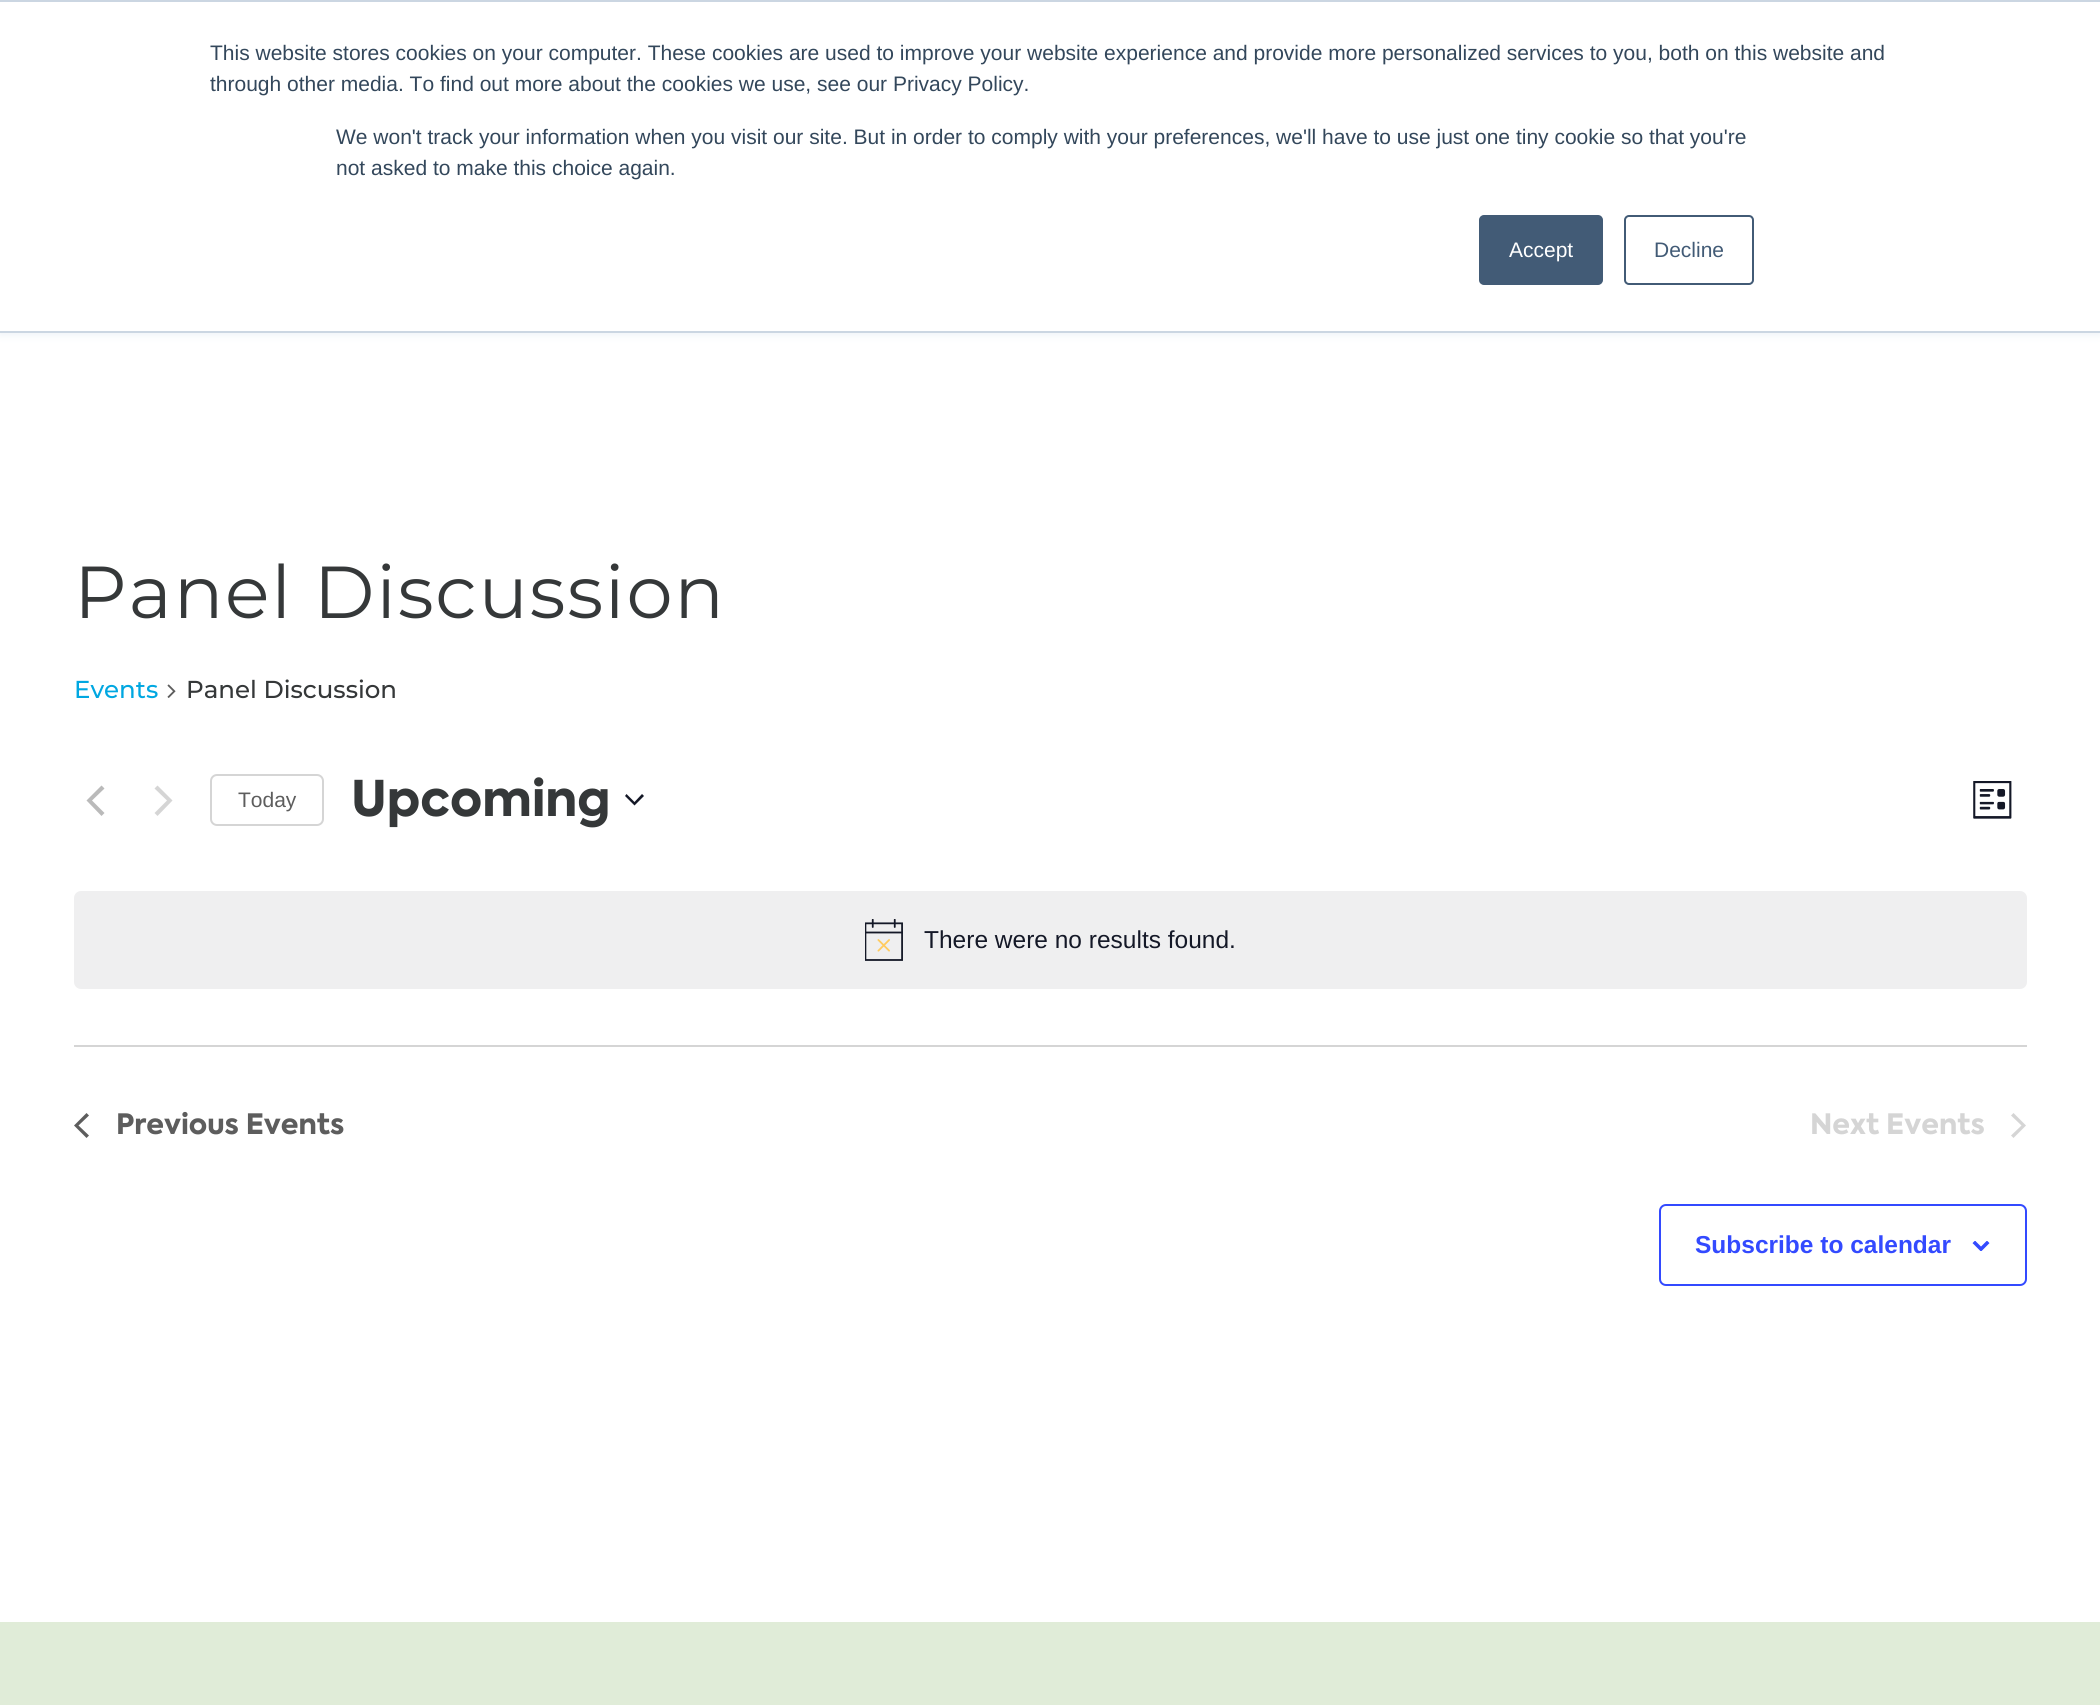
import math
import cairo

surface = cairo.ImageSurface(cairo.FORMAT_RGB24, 2100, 1705)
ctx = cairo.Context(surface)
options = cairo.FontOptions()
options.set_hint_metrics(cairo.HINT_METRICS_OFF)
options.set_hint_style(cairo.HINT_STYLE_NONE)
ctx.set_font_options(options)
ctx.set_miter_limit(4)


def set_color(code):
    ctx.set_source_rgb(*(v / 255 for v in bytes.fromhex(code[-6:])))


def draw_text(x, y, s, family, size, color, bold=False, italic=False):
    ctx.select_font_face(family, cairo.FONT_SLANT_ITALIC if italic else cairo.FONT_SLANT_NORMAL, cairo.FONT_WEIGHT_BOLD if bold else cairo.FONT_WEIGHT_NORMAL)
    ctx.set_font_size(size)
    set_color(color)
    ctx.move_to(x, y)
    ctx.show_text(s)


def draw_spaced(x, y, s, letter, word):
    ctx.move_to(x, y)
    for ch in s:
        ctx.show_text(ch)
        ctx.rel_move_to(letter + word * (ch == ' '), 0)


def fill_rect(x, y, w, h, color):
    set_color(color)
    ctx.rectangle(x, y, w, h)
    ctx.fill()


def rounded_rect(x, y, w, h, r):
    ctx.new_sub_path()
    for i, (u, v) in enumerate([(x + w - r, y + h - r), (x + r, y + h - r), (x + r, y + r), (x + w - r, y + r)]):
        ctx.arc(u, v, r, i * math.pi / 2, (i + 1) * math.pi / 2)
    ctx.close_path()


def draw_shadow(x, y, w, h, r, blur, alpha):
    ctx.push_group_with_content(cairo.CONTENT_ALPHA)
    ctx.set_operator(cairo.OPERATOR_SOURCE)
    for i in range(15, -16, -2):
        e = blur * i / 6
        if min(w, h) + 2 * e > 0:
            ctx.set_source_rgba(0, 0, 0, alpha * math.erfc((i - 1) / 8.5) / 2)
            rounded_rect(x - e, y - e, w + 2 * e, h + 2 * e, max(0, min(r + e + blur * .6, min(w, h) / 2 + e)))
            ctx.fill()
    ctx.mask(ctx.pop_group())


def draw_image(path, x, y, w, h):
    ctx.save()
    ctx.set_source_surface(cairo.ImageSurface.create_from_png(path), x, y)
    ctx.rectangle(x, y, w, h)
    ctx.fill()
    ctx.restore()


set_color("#ffffff")
ctx.paint()
set_color("#eaf0f6")
draw_shadow(0, 2, 2100, 332, 0, 4.5, 1)
fill_rect(0, 2, 2100, 329, "#ffffff")
fill_rect(0, 0, 2100, 2, "#cbd6e2")
fill_rect(0, 331, 2100, 2, "#cbd6e2")
draw_text(210, 60, "This website stores cookies on your computer. These cookies are used to improve your website experience and provide more personalized services to you, both on this website and", "Liberation Sans", 21, "#33475b")
draw_text(210, 91, "through other media. To find out more about the cookies we use, see our Privacy Policy.", "Liberation Sans", 21, "#33475b")
draw_text(336, 144, "We won't track your information when you visit our site. But in order to comply with your preferences, we'll have to use just one tiny cookie so that you're", "Liberation Sans", 21, "#33475b")
draw_text(336, 175, "not asked to make this choice again.", "Liberation Sans", 21, "#33475b")
set_color("#425b76")
rounded_rect(1480, 216, 122, 68, 4)
ctx.fill_preserve()
ctx.stroke()
draw_text(1509, 257, "Accept", "Liberation Sans", 21, "#ffffff")
rounded_rect(1625, 216, 128, 68, 4)
set_color("#425b76")
ctx.stroke()
draw_text(1654, 257, "Decline", "Liberation Sans", 21, "#425b76")
ctx.select_font_face("Montserrat")
ctx.set_font_size(73.5)
set_color("#353839")
draw_spaced(74, 618, "Panel Discussion", 1.75, 0)
draw_text(74, 698, "Events", "Montserrat Medium", 24.5, "#00a7e1")
draw_image("assets/img1.png", 167, 684, 9, 14)
draw_text(186, 698, "Panel Discussion", "Montserrat Medium", 24.5, "#353839")
set_color("#bababa")
ctx.new_path()
ctx.move_to(104.5, 813)
ctx.line_to(101.5, 816)
ctx.line_to(86.5, 800.5)
ctx.line_to(101.5, 785.5)
ctx.line_to(104.5, 788.5)
ctx.line_to(92, 800.5)
ctx.close_path()
ctx.fill()
set_color("#d5d5d5")
ctx.new_path()
ctx.move_to(154.5, 788.5)
ctx.line_to(157.5, 785.5)
ctx.line_to(172.5, 800.5)
ctx.line_to(157.5, 816)
ctx.line_to(154.5, 813)
ctx.line_to(167, 800.5)
ctx.close_path()
ctx.fill()
rounded_rect(211, 775, 112, 50, 6)
ctx.stroke()
draw_text(238, 807, "Today", "Liberation Sans", 21, "#5d5d5d")
draw_text(351, 816, "Upcoming", "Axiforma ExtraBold", 49, "#353839")
set_color("#141827")
ctx.set_fill_rule(cairo.FILL_RULE_EVEN_ODD)
ctx.new_path()
ctx.move_to(626.5, 794)
ctx.line_to(634.5, 802)
ctx.line_to(642, 794)
ctx.line_to(644, 796)
ctx.line_to(634.5, 805.5)
ctx.line_to(625, 796)
ctx.close_path()
ctx.fill()
draw_image("assets/img2.png", 1973, 781, 39, 38)
set_color("#efeff0")
rounded_rect(74, 891, 1953, 98, 7)
ctx.fill()
draw_image("assets/img3.png", 865, 919, 38, 42)
draw_text(924, 948, "There were no results found.", "Liberation Sans", 24.5, "#141827")
fill_rect(74, 1045, 1953, 2, "#d5d5d5")
set_color("#5d5d5d")
ctx.set_fill_rule(cairo.FILL_RULE_WINDING)
ctx.new_path()
ctx.move_to(89, 1135.5)
ctx.line_to(86.5, 1138)
ctx.line_to(74, 1125.5)
ctx.line_to(86.5, 1113)
ctx.line_to(89, 1115.5)
ctx.line_to(78.5, 1125.5)
ctx.close_path()
ctx.fill()
draw_text(116, 1134, "Previous Events", "Axiforma ExtraBold", 28, "#5d5d5d")
draw_text(1810, 1134, "Next Events", "Axiforma ExtraBold", 28, "#d5d5d5")
ctx.new_path()
ctx.move_to(2011, 1115.5)
ctx.line_to(2013.5, 1113)
ctx.line_to(2026, 1125.5)
ctx.line_to(2013.5, 1138)
ctx.line_to(2011, 1135.5)
ctx.line_to(2021.5, 1125.5)
ctx.close_path()
ctx.fill()
rounded_rect(1660, 1205, 366, 80, 6)
set_color("#334aff")
ctx.stroke()
draw_text(1695, 1253, "Subscribe to calendar", "Liberation Sans", 24.5, "#334aff", bold=True)
draw_image("assets/img4.png", 1972, 1241, 18, 10)
fill_rect(0, 1622, 2100, 83, "#e0ecd8")
surface.write_to_png("output.png")
